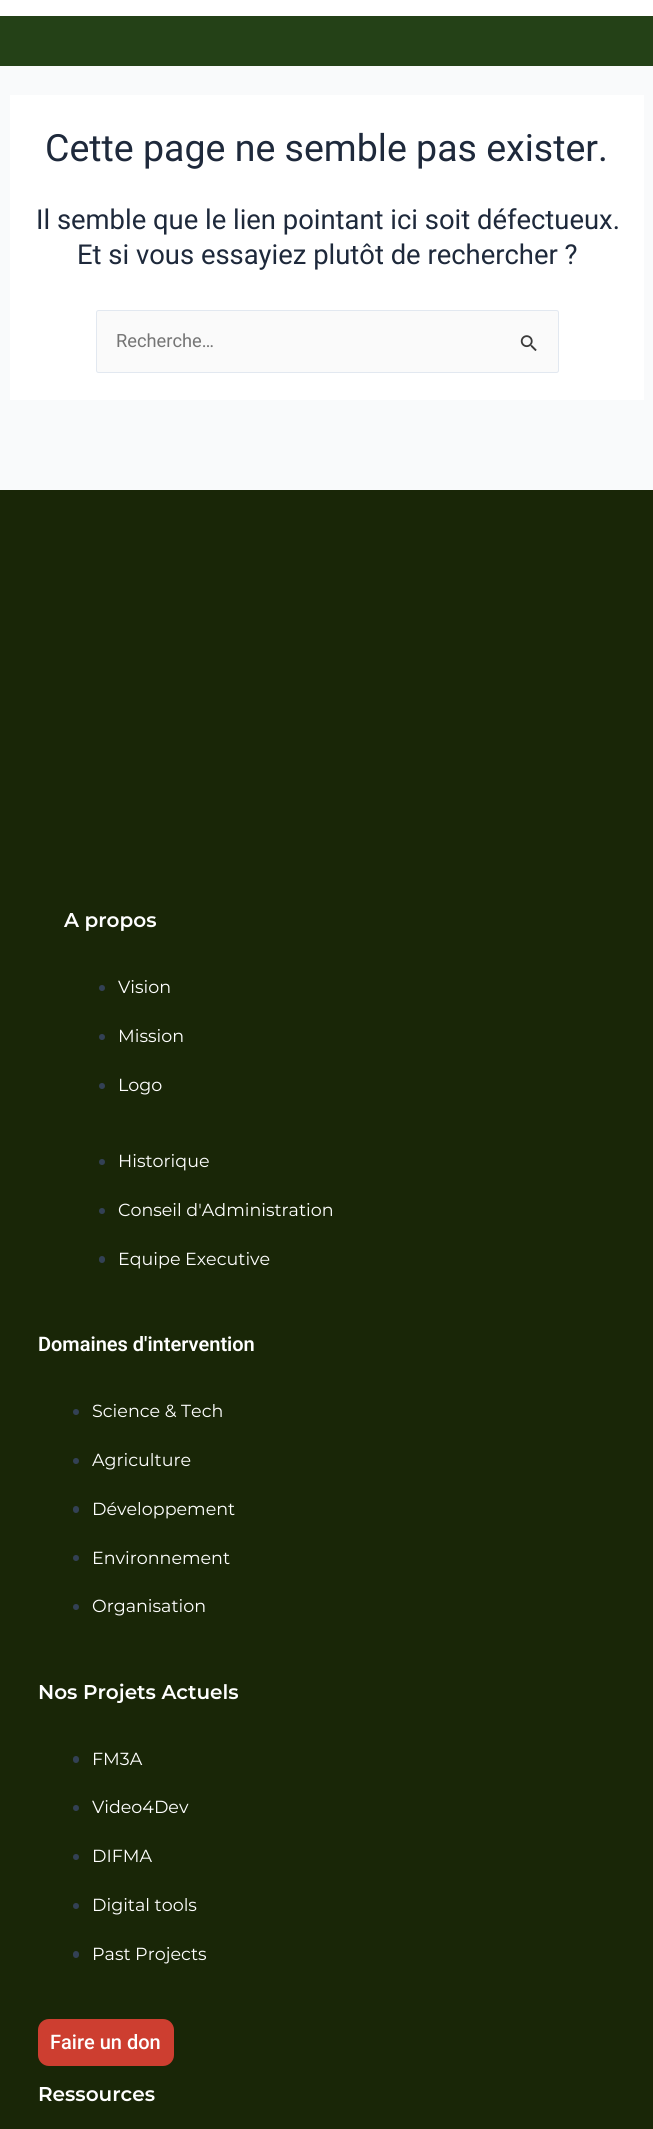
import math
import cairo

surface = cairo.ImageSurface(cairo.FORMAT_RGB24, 653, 2129)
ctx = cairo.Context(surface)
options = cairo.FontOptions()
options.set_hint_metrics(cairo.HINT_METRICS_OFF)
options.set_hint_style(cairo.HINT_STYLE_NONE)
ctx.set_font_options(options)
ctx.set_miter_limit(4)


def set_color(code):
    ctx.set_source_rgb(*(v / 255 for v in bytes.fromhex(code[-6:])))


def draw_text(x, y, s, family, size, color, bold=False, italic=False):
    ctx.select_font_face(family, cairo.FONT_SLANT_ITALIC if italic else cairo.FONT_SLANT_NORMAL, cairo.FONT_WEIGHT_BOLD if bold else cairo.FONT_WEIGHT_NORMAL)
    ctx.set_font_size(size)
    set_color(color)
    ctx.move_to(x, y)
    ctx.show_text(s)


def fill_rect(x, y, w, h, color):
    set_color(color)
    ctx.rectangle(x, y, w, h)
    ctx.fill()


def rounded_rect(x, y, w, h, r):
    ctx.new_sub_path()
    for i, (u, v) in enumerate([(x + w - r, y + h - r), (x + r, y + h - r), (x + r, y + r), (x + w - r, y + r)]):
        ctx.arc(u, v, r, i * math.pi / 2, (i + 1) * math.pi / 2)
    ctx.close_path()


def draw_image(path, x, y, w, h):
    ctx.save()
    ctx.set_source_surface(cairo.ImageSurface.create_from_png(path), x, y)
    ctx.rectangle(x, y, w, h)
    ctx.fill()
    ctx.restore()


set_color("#f9fafb")
ctx.paint()
fill_rect(0, 0, 653, 16, "#ffffff")
fill_rect(0, 16, 653, 50, "#244117")
fill_rect(10, 95, 634, 305, "#ffffff")
draw_text(45, 161, "Cette page ne semble pas exister.", "Roboto", 37.5, "#1e293b")
draw_text(36, 229, "Il semble que le lien pointant ici soit défectueux.", "Roboto", 27.4, "#1e293b")
draw_text(77, 264, "Et si vous essayiez plutôt de rechercher ?", "Roboto", 27.4, "#1e293b")
set_color("#fafafa")
rounded_rect(96.5, 310.5, 462, 62, 2)
ctx.fill_preserve()
set_color("#e2e8f0")
ctx.set_line_width(1)
ctx.stroke()
draw_text(116, 347, "Recherche…", "Roboto", 18.25, "#757575")
draw_image("assets/img1.png", 520, 335, 17, 16)
fill_rect(0, 490, 653, 1639, "#192607")
draw_text(64, 927, "A propos", "Montserrat SemiBold", 20, "#ffffff")
set_color("#334155")
ctx.new_path()
ctx.arc(102, 988, 3, 0, 2 * math.pi)
ctx.fill()
draw_text(118, 993, "Vision", "Montserrat", 17.5, "#ffffff")
set_color("#334155")
ctx.new_path()
ctx.arc(102, 1037, 3, 0, 2 * math.pi)
ctx.fill()
draw_text(118, 1042, "Mission", "Montserrat", 17.5, "#ffffff")
set_color("#334155")
ctx.new_path()
ctx.arc(102, 1086, 3, 0, 2 * math.pi)
ctx.fill()
draw_text(118, 1091, "Logo", "Montserrat", 17.5, "#ffffff")
set_color("#334155")
ctx.new_path()
ctx.arc(102, 1162, 3, 0, 2 * math.pi)
ctx.fill()
draw_text(118, 1167, "Historique", "Montserrat", 17.5, "#ffffff")
set_color("#334155")
ctx.new_path()
ctx.arc(102, 1211, 3, 0, 2 * math.pi)
ctx.fill()
draw_text(118, 1216, "Conseil d'Administration", "Montserrat", 17.5, "#ffffff")
set_color("#334155")
rounded_rect(99, 1256, 6, 7, 3)
ctx.fill()
draw_text(118, 1265, "Equipe Executive", "Montserrat", 17.5, "#ffffff")
draw_text(38, 1351, "Domaines d'intervention", "Roboto SemiBold", 20, "#ffffff")
set_color("#334155")
ctx.new_path()
ctx.arc(76, 1412, 3, 0, 2 * math.pi)
ctx.fill()
draw_text(92, 1417, "Science & Tech", "Montserrat", 17.5, "#ffffff")
set_color("#334155")
ctx.new_path()
ctx.arc(76, 1461, 3, 0, 2 * math.pi)
ctx.fill()
draw_text(92, 1466, "Agriculture", "Montserrat", 17.5, "#ffffff")
set_color("#334155")
rounded_rect(73, 1506, 6, 7, 3)
ctx.fill()
draw_text(92, 1515, "Développement", "Montserrat", 17.5, "#ffffff")
set_color("#334155")
ctx.new_path()
ctx.arc(76, 1558, 3, 0, 2 * math.pi)
ctx.fill()
draw_text(92, 1564, "Environnement", "Montserrat", 17.5, "#ffffff")
set_color("#334155")
ctx.new_path()
ctx.arc(76, 1607, 3, 0, 2 * math.pi)
ctx.fill()
draw_text(92, 1612, "Organisation", "Montserrat", 17.5, "#ffffff")
draw_text(38, 1699, "Nos Projets Actuels", "Montserrat SemiBold", 20, "#ffffff")
set_color("#334155")
rounded_rect(73, 1756, 6, 7, 3)
ctx.fill()
draw_text(92, 1765, "FM3A", "Montserrat", 17.5, "#ffffff")
set_color("#334155")
ctx.new_path()
ctx.arc(76, 1808, 3, 0, 2 * math.pi)
ctx.fill()
draw_text(92, 1813, "Video4Dev", "Montserrat", 17.5, "#ffffff")
set_color("#334155")
ctx.new_path()
ctx.arc(76, 1857, 3, 0, 2 * math.pi)
ctx.fill()
draw_text(92, 1862, "DIFMA", "Montserrat", 17.5, "#ffffff")
set_color("#334155")
ctx.new_path()
ctx.arc(76, 1906, 3, 0, 2 * math.pi)
ctx.fill()
draw_text(92, 1911, "Digital tools", "Montserrat", 17.5, "#ffffff")
set_color("#334155")
rounded_rect(73, 1951, 6, 7, 3)
ctx.fill()
draw_text(92, 1960, "Past Projects", "Montserrat", 17.5, "#ffffff")
set_color("#cd3e30")
rounded_rect(38, 2019, 136, 47, 11)
ctx.fill()
draw_text(50, 2049, "Faire un don", "Roboto Medium", 20, "#ffffff")
draw_text(38, 2101, "Ressources", "Montserrat SemiBold", 20, "#ffffff")
surface.write_to_png("output.png")
